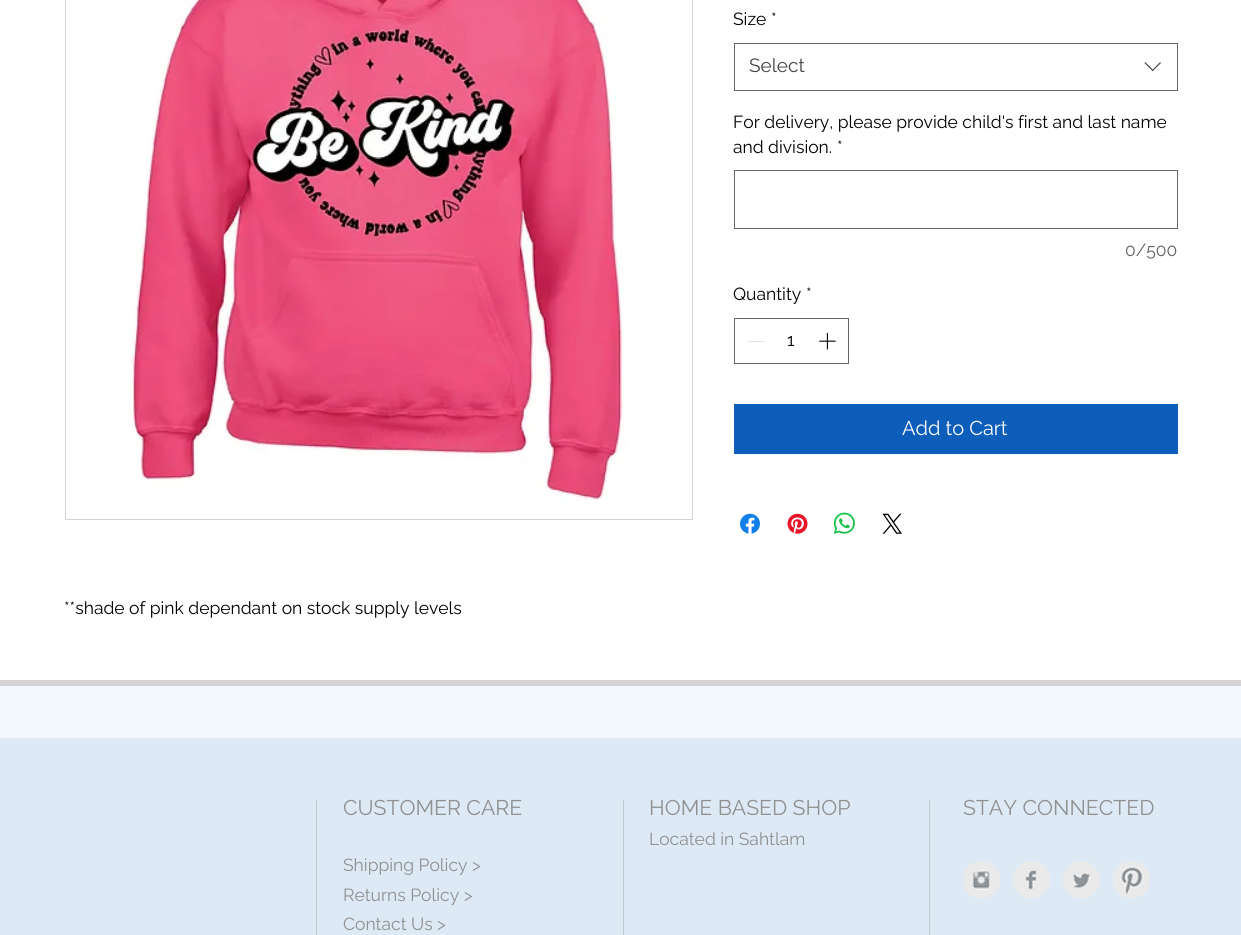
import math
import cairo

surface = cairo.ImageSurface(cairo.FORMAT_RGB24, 1241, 935)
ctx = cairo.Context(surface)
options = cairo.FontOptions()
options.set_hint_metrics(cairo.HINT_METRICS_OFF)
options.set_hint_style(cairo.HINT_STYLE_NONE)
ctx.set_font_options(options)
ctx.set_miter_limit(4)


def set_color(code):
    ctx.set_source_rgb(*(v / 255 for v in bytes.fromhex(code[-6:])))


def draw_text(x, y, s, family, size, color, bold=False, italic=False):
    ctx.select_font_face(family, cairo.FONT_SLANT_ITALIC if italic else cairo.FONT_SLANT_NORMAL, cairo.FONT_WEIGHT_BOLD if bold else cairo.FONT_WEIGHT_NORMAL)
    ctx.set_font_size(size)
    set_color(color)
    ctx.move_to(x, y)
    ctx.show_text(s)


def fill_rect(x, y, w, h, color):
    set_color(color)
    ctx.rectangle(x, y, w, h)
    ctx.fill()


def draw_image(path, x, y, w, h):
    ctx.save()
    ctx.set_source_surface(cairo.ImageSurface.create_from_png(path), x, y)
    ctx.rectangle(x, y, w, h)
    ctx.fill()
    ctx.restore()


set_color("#ffffff")
ctx.paint()
draw_text(733, 25, "Size", "Raleway", 17.5, "#000000")
draw_text(771, 25, "*", "Raleway", 17.5, "#000000")
ctx.rectangle(734.5, 43.5, 443, 47)
set_color("#666666")
ctx.set_line_width(1)
ctx.stroke()
draw_text(749, 72, "Select", "Raleway", 19, "#444444")
draw_image("assets/img1.png", 1144, 62, 17, 10)
draw_text(733, 128, "For delivery, please provide child's first and last name", "Raleway", 17.5, "#000000")
draw_text(733, 153, "and division.", "Raleway", 17.5, "#000000")
draw_text(837, 153, "*", "Raleway", 17.5, "#000000")
ctx.rectangle(734.5, 170.5, 443, 58)
set_color("#666666")
ctx.stroke()
draw_text(1125, 256, "0/500", "Raleway", 17.5, "#606060")
draw_text(733, 300, "Quantity", "Raleway", 17.5, "#000000")
draw_text(806, 300, "*", "Raleway", 17.5, "#000000")
ctx.rectangle(734.5, 318.5, 114, 45)
set_color("#666666")
ctx.stroke()
fill_rect(748, 341, 17, 1, "#e3e3e3")
draw_text(787, 346, "1", "Raleway", 17.5, "#000000")
draw_image("assets/img2.png", 819, 332, 17, 18)
fill_rect(734, 404, 444, 50, "#0d5eba")
draw_text(902, 435, "Add to Cart", "Raleway", 20, "#ffffff")
draw_image("assets/img3.png", 740, 513, 20, 21)
draw_image("assets/img4.png", 787, 513, 21, 21)
draw_image("assets/img5.png", 833, 512, 22, 22)
draw_image("assets/img6.png", 882, 513, 20, 21)
ctx.rectangle(65.5, -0.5, 627, 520)
set_color("#d4d4d4")
ctx.stroke()
draw_image("assets/img7.png", 126, 0, 500, 500)
draw_text(64, 614, "**shade of pink dependant on stock supply levels", "Raleway", 17.5, "#000000")
fill_rect(0, 686, 1241, 52, "#f1f7fc")
fill_rect(0, 680, 1241, 6, "#d4d4d4")
fill_rect(0, 738, 1241, 197, "#ddeaf6")
fill_rect(316, 800, 1, 135, "#c2cbd2")
draw_text(343, 815, "CUSTOMER CARE", "Raleway", 21.25, "#909090")
draw_text(343, 871, "Shipping Policy >", "Raleway", 17.5, "#909090")
draw_text(343, 901, "Returns Policy >", "Raleway", 17.5, "#909090")
draw_text(343, 930, "Contact Us >", "Raleway", 17.5, "#909090")
fill_rect(623, 800, 1, 135, "#c2cbd2")
draw_text(649, 815, "HOME BASED SHOP", "Raleway", 21.25, "#909090")
draw_text(649, 845, "Located in Sahtlam", "Raleway", 17.5, "#909090")
fill_rect(929, 800, 1, 135, "#c2cbd2")
draw_text(963, 815, "STAY CONNECTED", "Raleway", 21.25, "#909090")
draw_image("assets/img8.png", 962, 861, 38, 38)
draw_image("assets/img9.png", 1012, 861, 38, 38)
draw_image("assets/img10.png", 1062, 861, 38, 38)
draw_image("assets/img11.png", 1112, 861, 38, 38)
surface.write_to_png("output.png")
